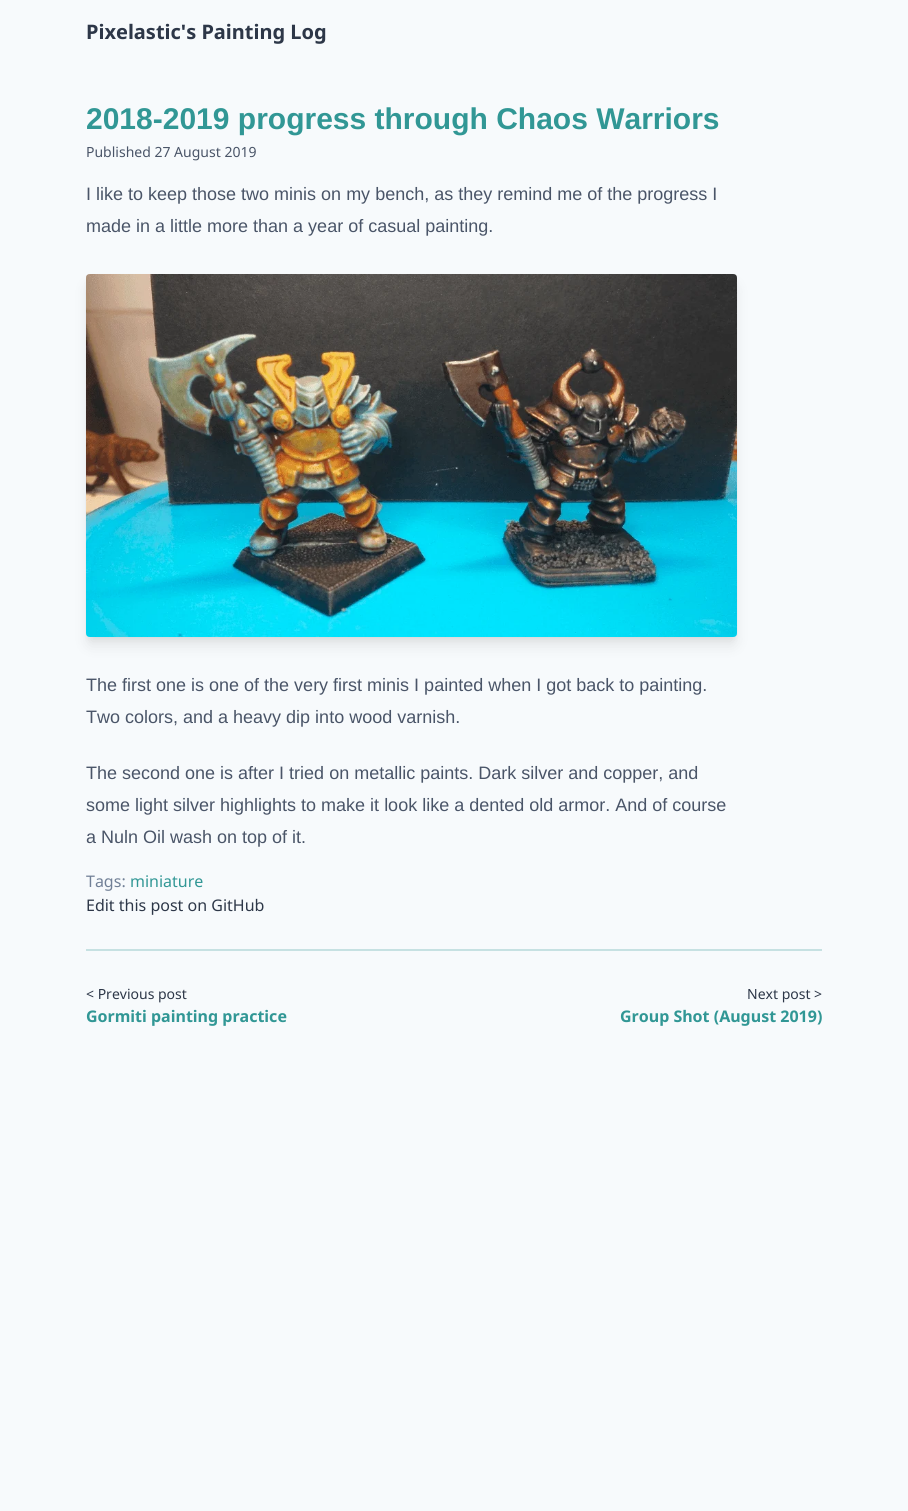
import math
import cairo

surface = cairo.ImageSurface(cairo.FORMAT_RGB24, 908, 1511)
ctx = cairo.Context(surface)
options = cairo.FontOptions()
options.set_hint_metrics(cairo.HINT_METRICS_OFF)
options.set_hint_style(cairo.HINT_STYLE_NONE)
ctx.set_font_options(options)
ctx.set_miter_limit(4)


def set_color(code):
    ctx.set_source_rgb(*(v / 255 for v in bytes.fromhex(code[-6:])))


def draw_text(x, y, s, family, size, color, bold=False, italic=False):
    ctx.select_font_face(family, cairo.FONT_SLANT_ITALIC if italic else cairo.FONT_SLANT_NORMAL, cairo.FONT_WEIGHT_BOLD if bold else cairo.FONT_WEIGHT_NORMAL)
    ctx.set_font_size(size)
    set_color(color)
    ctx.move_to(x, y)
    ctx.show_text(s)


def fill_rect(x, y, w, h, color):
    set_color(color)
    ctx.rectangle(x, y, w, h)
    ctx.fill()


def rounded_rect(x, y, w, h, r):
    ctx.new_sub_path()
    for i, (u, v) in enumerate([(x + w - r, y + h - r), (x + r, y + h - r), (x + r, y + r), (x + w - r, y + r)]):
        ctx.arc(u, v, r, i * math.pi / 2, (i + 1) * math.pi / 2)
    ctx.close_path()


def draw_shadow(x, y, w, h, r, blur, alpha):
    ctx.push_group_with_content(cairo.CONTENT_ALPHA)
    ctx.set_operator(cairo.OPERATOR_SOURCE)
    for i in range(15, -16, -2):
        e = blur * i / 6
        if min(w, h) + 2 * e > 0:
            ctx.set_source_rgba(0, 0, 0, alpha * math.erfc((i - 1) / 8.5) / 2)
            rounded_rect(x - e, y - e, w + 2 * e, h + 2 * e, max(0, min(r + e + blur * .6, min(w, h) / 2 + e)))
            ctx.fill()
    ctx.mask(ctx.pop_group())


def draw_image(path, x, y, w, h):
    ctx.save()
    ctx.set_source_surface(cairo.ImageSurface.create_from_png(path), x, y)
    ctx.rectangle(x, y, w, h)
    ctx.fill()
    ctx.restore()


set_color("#f7fafc")
ctx.paint()
draw_text(86, 39, "Pixelastic's Painting Log", "Noto Sans", 20, "#2d3748", bold=True)
draw_text(86, 129, "2018-2019 progress through Chaos Warriors", "Liberation Sans", 30, "#319795", bold=True)
draw_text(86, 157, "Published 27 August 2019", "Noto Sans", 14, "#4a5568")
draw_text(86, 200, "I like to keep those two minis on my bench, as they remind me of the progress I", "Liberation Sans", 18, "#4a5568")
draw_text(86, 232, "made in a little more than a year of casual painting.", "Liberation Sans", 18, "#4a5568")
set_color("#000000")
draw_shadow(88, 280, 647, 359, 2, 3, 0.05)
draw_shadow(89, 287, 645, 357, 1, 7.5, 0.1)
draw_image("assets/img1.png", 86, 274, 651, 363)
draw_text(86, 691, "The first one is one of the very first minis I painted when I got back to painting.", "Liberation Sans", 18, "#4a5568")
draw_text(86, 723, "Two colors, and a heavy dip into wood varnish.", "Liberation Sans", 18, "#4a5568")
draw_text(86, 779, "The second one is after I tried on metallic paints. Dark silver and copper, and", "Liberation Sans", 18, "#4a5568")
draw_text(86, 811, "some light silver highlights to make it look like a dented old armor. And of course", "Liberation Sans", 18, "#4a5568")
draw_text(86, 843, "a Nuln Oil wash on top of it.", "Liberation Sans", 18, "#4a5568")
draw_text(86, 887, "Tags:", "Noto Sans", 16, "#718096")
draw_text(130, 887, "miniature", "Noto Sans", 16, "#319795")
draw_text(86, 911, "Edit this post on GitHub", "Noto Sans", 16, "#2d3748")
fill_rect(86, 949, 736, 2, "#c6e1e2")
draw_text(86, 999, "< Previous post", "Noto Sans", 14, "#2d3748")
draw_text(86, 1022, "Gormiti painting practice", "Noto Sans", 16, "#319795", bold=True)
draw_text(747, 999, "Next post >", "Noto Sans", 14, "#2d3748")
draw_text(620, 1022, "Group Shot (August 2019)", "Noto Sans", 16, "#319795", bold=True)
surface.write_to_png("output.png")
